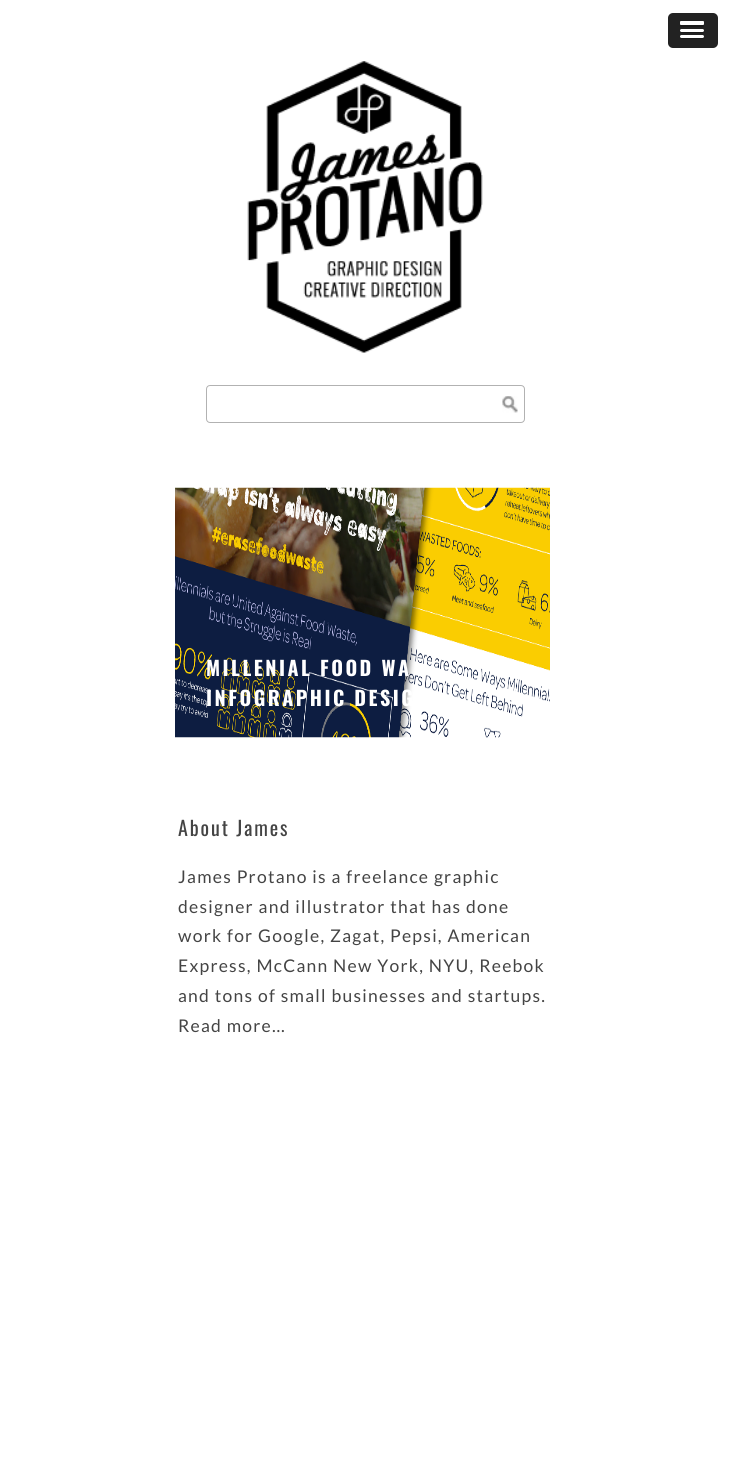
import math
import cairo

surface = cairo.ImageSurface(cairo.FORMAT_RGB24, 730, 1460)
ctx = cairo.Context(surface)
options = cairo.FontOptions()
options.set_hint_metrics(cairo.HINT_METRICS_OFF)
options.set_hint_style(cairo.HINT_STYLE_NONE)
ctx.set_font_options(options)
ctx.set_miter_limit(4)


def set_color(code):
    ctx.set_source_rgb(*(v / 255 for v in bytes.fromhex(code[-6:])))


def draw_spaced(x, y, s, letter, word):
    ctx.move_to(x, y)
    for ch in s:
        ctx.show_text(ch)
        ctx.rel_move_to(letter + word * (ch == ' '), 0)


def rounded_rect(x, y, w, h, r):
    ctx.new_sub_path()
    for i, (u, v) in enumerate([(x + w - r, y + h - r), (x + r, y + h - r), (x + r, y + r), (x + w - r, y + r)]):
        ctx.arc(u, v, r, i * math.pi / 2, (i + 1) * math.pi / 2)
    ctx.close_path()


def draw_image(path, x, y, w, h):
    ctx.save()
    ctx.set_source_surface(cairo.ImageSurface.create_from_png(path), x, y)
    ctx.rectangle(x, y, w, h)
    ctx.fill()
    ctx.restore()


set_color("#ffffff")
ctx.paint()
set_color("#222222")
rounded_rect(668, 13, 50, 35, 5)
ctx.fill()
set_color("#1a1a1a")
ctx.new_path()
ctx.move_to(680, 24)
ctx.curve_to(679.5, 28, 681, 27, 684.5, 27)
ctx.line_to(699.5, 27)
ctx.curve_to(702.5, 27, 704, 28, 704, 25)
ctx.line_to(704, 23.5)
ctx.line_to(704, 24)
ctx.curve_to(704, 24.5, 703, 25, 702.5, 25)
ctx.line_to(681, 25)
ctx.curve_to(680.5, 25, 680, 24.5, 680, 24)
ctx.close_path()
ctx.fill()
set_color("#ffffff")
rounded_rect(680, 21, 24, 4, 1)
ctx.fill()
set_color("#1a1a1a")
ctx.new_path()
ctx.move_to(680, 30.5)
ctx.curve_to(678.5, 33.5, 684.5, 33, 685, 33)
ctx.line_to(703, 33)
ctx.curve_to(704, 32.5, 704.5, 31.5, 703.5, 30.5)
ctx.line_to(702.5, 31)
ctx.line_to(681, 31)
ctx.close_path()
ctx.fill()
set_color("#ffffff")
rounded_rect(680, 29, 24, 3, 1.5)
ctx.fill()
set_color("#1a1a1a")
ctx.new_path()
ctx.move_to(680, 37)
ctx.curve_to(679, 39.5, 684.5, 39, 685, 39)
ctx.line_to(699, 39)
ctx.curve_to(699, 39, 706, 39.5, 703.5, 36.5)
ctx.line_to(703, 37.5)
ctx.line_to(681, 37.5)
ctx.close_path()
ctx.fill()
set_color("#ffffff")
rounded_rect(680, 35, 24, 3, 1.5)
ctx.fill()
draw_image("assets/img1.png", 247, 61, 236, 292)
rounded_rect(206.5, 385.5, 318, 37, 3.5)
set_color("#b2b2b2")
ctx.set_line_width(1)
ctx.stroke()
draw_image("assets/img2.png", 502, 396, 16, 17)
draw_image("assets/img3.png", 175, 487, 375, 251)
ctx.select_font_face("Oswald", cairo.FONT_SLANT_NORMAL, cairo.FONT_WEIGHT_BOLD)
ctx.set_font_size(20)
set_color("#ffffff")
draw_spaced(206, 676, "MILLENIAL FOOD WA", 2.5, 0)
draw_spaced(206, 706, "INFOGRAPHIC DESIG", 2.5, 0)
ctx.select_font_face("Oswald")
set_color("#444444")
draw_spaced(178, 836, "About James", 1.9, 0)
ctx.select_font_face("Lato")
ctx.set_font_size(17.5)
draw_spaced(178, 883, "James Protano is a freelance graphic", 1.25, 0)
draw_spaced(178, 913, "designer and illustrator that has done", 1.25, 0)
draw_spaced(178, 942, "work for Google, Zagat, Pepsi, American", 1.25, 0)
draw_spaced(178, 972, "Express, McCann New York, NYU, Reebok", 1.25, 0)
draw_spaced(178, 1002, "and tons of small businesses and startups.", 1.25, 0)
draw_spaced(178, 1032, "Read more…", 1.25, 0)
surface.write_to_png("output.png")
